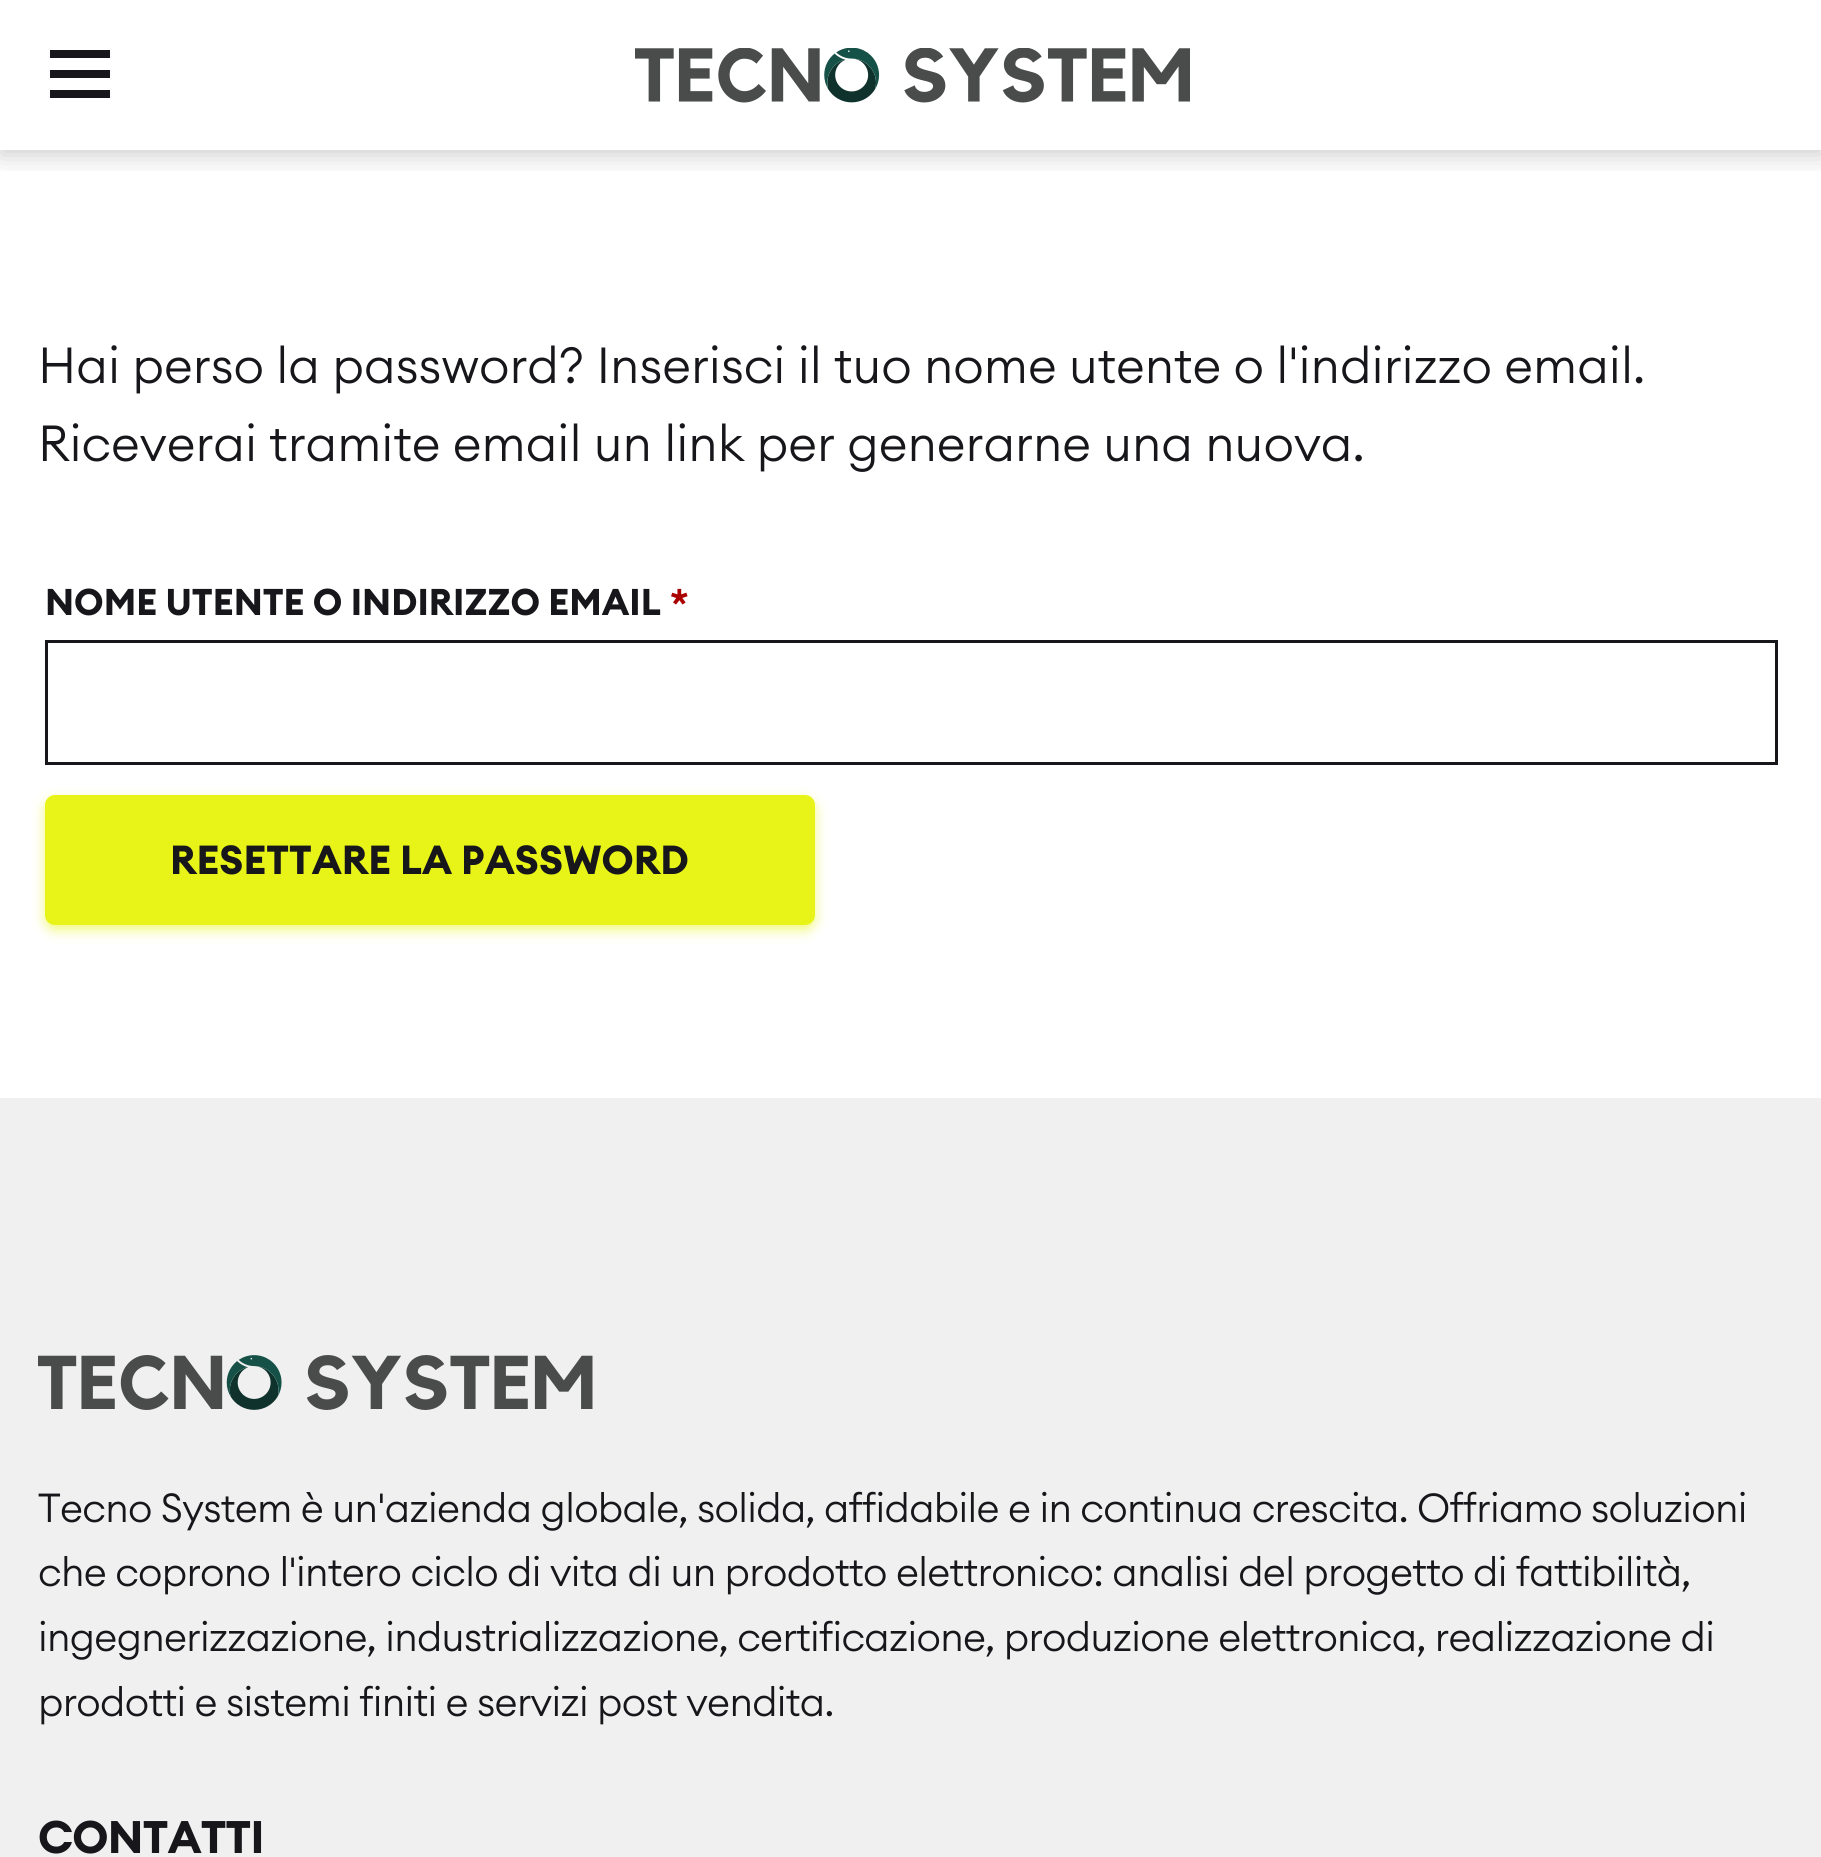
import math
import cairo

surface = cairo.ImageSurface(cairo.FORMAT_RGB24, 1821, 1857)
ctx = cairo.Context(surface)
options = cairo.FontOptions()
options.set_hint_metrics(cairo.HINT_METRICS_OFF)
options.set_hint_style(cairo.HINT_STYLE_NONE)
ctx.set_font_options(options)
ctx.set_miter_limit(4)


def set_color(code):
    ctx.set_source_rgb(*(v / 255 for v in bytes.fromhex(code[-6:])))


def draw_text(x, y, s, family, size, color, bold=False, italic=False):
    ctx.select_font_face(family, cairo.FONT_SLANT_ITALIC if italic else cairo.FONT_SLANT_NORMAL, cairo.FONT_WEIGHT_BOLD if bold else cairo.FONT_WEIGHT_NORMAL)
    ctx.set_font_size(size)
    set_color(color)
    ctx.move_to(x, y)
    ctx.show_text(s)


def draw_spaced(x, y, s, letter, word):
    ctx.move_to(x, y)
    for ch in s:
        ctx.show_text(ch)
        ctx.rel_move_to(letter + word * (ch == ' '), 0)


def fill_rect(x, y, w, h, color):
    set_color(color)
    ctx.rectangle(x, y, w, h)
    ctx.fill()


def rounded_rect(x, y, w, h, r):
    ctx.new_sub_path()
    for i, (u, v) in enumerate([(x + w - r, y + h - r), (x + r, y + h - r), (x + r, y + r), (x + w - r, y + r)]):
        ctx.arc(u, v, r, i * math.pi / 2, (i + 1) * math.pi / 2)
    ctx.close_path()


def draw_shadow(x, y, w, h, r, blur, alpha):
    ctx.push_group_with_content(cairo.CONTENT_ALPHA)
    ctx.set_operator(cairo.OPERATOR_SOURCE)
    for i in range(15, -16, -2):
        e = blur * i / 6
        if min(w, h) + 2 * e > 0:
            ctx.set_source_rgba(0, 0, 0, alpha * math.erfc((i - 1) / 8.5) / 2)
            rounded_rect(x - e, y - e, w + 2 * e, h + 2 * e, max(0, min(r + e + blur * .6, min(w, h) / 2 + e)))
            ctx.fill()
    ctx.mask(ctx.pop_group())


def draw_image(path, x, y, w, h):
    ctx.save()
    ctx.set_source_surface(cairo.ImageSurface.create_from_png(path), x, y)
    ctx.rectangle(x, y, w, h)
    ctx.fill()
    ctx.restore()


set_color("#ffffff")
ctx.paint()
ctx.save()
ctx.rectangle(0, 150, 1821, 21)
ctx.clip()
set_color("#000000")
draw_shadow(0, 5, 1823, 150, 0, 12.5, 0.2)
ctx.restore()
fill_rect(50, 70, 60, 8, "#17171b")
fill_rect(50, 50, 60, 8, "#17171b")
fill_rect(50, 90, 60, 8, "#17171b")
draw_image("assets/img1.png", 635, 48, 555, 55)
draw_text(38, 383, "Hai perso la password? Inserisci il tuo nome utente o l'indirizzo email.", "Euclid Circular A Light", 50, "#17171b")
draw_text(38, 461, "Riceverai tramite email un link per generarne una nuova.", "Euclid Circular A Light", 50, "#17171b")
draw_text(45, 615, "NOME UTENTE O INDIRIZZO EMAIL", "Euclid Circular A", 36.75, "#17171b", bold=True)
draw_text(670, 615, "*", "Euclid Circular A", 36.75, "#aa0000", bold=True)
ctx.rectangle(46.5, 641.5, 1730, 122)
set_color("#17171b")
ctx.set_line_width(3)
ctx.stroke()
set_color("#e8f417")
draw_shadow(45, 800, 770, 130, 10, 6, 0.58)
set_color("#e8f417")
rounded_rect(45, 795, 770, 130, 10)
ctx.fill()
draw_text(170, 874, "RESETTARE LA PASSWORD", "Euclid Circular A", 40, "#17171b", bold=True)
fill_rect(0, 1098, 1821, 759, "#f0f0f0")
draw_image("assets/img2.png", 38, 1355, 555, 55)
ctx.select_font_face("Euclid Circular A Light")
set_color("#17171b")
draw_spaced(38, 1522, "Tecno System è un'azienda globale, solida, affidabile e in continua crescita. Offriamo soluzioni", -0.68, 0)
draw_spaced(38, 1586, "che coprono l'intero ciclo di vita di un prodotto elettronico: analisi del progetto di fattibilità,", -0.68, 0)
draw_spaced(38, 1651, "ingegnerizzazione, industrializzazione, certificazione, produzione elettronica, realizzazione di", -0.68, 0)
draw_spaced(38, 1716, "prodotti e sistemi finiti e servizi post vendita.", -0.68, 0)
ctx.select_font_face("Euclid Circular A", cairo.FONT_SLANT_NORMAL, cairo.FONT_WEIGHT_BOLD)
ctx.set_font_size(45)
draw_spaced(38, 1853, "CONTATTI", -0.68, 0)
surface.write_to_png("output.png")
